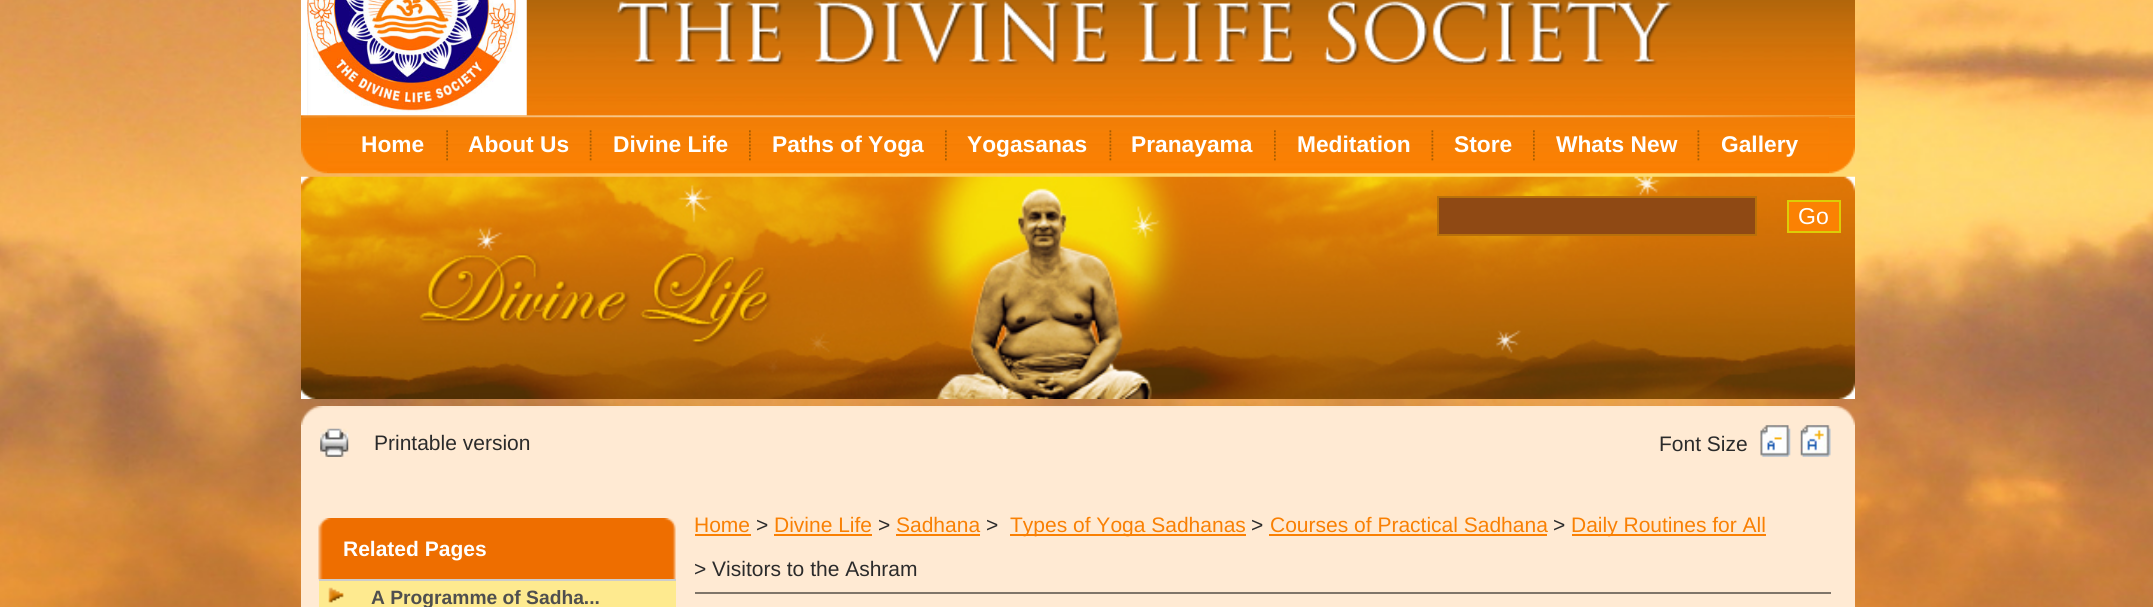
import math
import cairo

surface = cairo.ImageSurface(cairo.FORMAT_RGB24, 2153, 607)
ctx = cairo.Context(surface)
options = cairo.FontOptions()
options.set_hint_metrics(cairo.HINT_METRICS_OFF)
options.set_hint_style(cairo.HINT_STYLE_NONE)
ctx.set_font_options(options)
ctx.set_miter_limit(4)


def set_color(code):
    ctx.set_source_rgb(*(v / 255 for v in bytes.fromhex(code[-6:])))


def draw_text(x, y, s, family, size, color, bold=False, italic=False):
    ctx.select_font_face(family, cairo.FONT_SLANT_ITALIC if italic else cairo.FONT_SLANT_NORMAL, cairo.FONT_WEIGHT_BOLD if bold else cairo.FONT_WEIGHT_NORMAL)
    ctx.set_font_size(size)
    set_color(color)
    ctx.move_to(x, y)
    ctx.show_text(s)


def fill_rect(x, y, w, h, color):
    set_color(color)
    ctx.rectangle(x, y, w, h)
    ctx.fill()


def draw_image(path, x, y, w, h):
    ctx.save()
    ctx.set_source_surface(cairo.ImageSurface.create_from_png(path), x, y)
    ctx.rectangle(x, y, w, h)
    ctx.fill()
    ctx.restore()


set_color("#ffffff")
ctx.paint()
draw_image("assets/img1.png", 0, 0, 2153, 607)
draw_image("assets/img2.png", 301, 0, 1554, 116)
draw_image("assets/img3.png", 301, 0, 226, 116)
draw_image("assets/img4.png", 617, 1, 1057, 64)
fill_rect(327, 117, 1502, 56, "#fa7f03")
draw_image("assets/img7.png", 327, 117, 1502, 57)
draw_image("assets/img5.png", 301, 115, 1554, 3)
draw_image("assets/img6.png", 301, 117, 26, 57)
draw_text(361, 152, "Home", "Liberation Sans", 22.75, "#ffffff", bold=True)
draw_image("assets/img8.png", 446, 130, 2, 31)
draw_text(468, 152, "About Us", "Liberation Sans", 22.75, "#ffffff", bold=True)
draw_image("assets/img9.png", 589, 130, 3, 31)
draw_text(613, 152, "Divine Life", "Liberation Sans", 22.75, "#ffffff", bold=True)
draw_image("assets/img10.png", 749, 130, 2, 31)
draw_text(772, 152, "Paths of Yoga", "Liberation Sans", 22.75, "#ffffff", bold=True)
draw_image("assets/img10.png", 945, 130, 2, 31)
draw_text(967, 152, "Yogasanas", "Liberation Sans", 22.75, "#ffffff", bold=True)
draw_image("assets/img11.png", 1109, 130, 3, 31)
draw_text(1131, 152, "Pranayama", "Liberation Sans", 22.75, "#ffffff", bold=True)
draw_image("assets/img10.png", 1274, 130, 2, 31)
draw_text(1297, 152, "Meditation", "Liberation Sans", 22.75, "#ffffff", bold=True)
draw_image("assets/img11.png", 1431, 130, 3, 31)
draw_text(1454, 152, "Store", "Liberation Sans", 22.75, "#ffffff", bold=True)
draw_image("assets/img10.png", 1533, 130, 2, 31)
draw_text(1556, 152, "Whats New", "Liberation Sans", 22.75, "#ffffff", bold=True)
draw_image("assets/img11.png", 1697, 130, 3, 31)
draw_text(1721, 152, "Gallery", "Liberation Sans", 22.75, "#ffffff", bold=True)
draw_image("assets/img12.png", 1828, 117, 27, 57)
draw_image("assets/img13.png", 301, 176, 1554, 223)
set_color("#8f4914")
ctx.rectangle(1438, 197, 318, 38)
ctx.fill_preserve()
set_color("#b8700a")
ctx.stroke()
set_color("#fb8103")
ctx.rectangle(1788, 201, 52, 31)
ctx.fill_preserve()
set_color("#ddcd07")
ctx.stroke()
draw_text(1798, 224, "Go", "Liberation Sans", 23, "#ffffff")
draw_image("assets/img14.png", 301, 406, 1554, 19)
fill_rect(301, 425, 1554, 182, "#ffead3")
draw_image("assets/img15.png", 320, 428, 29, 29)
draw_text(374, 450, "Printable version", "Liberation Sans", 21, "#2b2b2b")
draw_image("assets/img16.png", 318, 518, 358, 62)
draw_text(343, 556, "Related Pages", "Liberation Sans", 21, "#ffffff", bold=True)
fill_rect(319, 581, 357, 26, "#feea8f")
fill_rect(319, 579, 357, 2, "#cdcdcd")
draw_image("assets/img17.png", 328, 587, 16, 16)
draw_text(371, 604, "A Programme of Sadha...", "Liberation Sans", 19.25, "#4f4f4f", bold=True)
draw_text(1659, 451, "Font Size", "Liberation Sans", 21, "#2b2b2b")
draw_image("assets/img18.png", 1760, 425, 31, 32)
draw_image("assets/img19.png", 1800, 425, 31, 32)
fill_rect(695, 592, 1136, 2, "#7f7569")
draw_text(694, 532, "Home", "Liberation Sans", 21, "#f98003")
fill_rect(695, 534, 56, 2, "#f98003")
draw_text(756, 532, ">", "Liberation Sans", 21, "#2b2b2b")
draw_text(774, 532, "Divine Life", "Liberation Sans", 21, "#f98003")
fill_rect(774, 534, 98, 2, "#f98003")
draw_text(878, 532, ">", "Liberation Sans", 21, "#2b2b2b")
draw_text(896, 532, "Sadhana", "Liberation Sans", 21, "#f98003")
fill_rect(896, 534, 84, 2, "#f98003")
draw_text(986, 532, ">", "Liberation Sans", 21, "#2b2b2b")
fill_rect(1010, 534, 236, 2, "#f98003")
draw_text(1010, 532, "Types of Yoga Sadhanas", "Liberation Sans", 21, "#f98003")
draw_text(1251, 532, ">", "Liberation Sans", 21, "#2b2b2b")
draw_text(1270, 532, "Courses of Practical Sadhana", "Liberation Sans", 21, "#f98003")
fill_rect(1269, 534, 278, 2, "#f98003")
draw_text(1553, 532, ">", "Liberation Sans", 21, "#2b2b2b")
fill_rect(1572, 534, 194, 2, "#f98003")
draw_text(1571, 532, "Daily Routines for All", "Liberation Sans", 21, "#f98003")
draw_text(694, 576, "> Visitors to the Ashram", "Liberation Sans", 21, "#2b2b2b")
surface.write_to_png("output.png")
